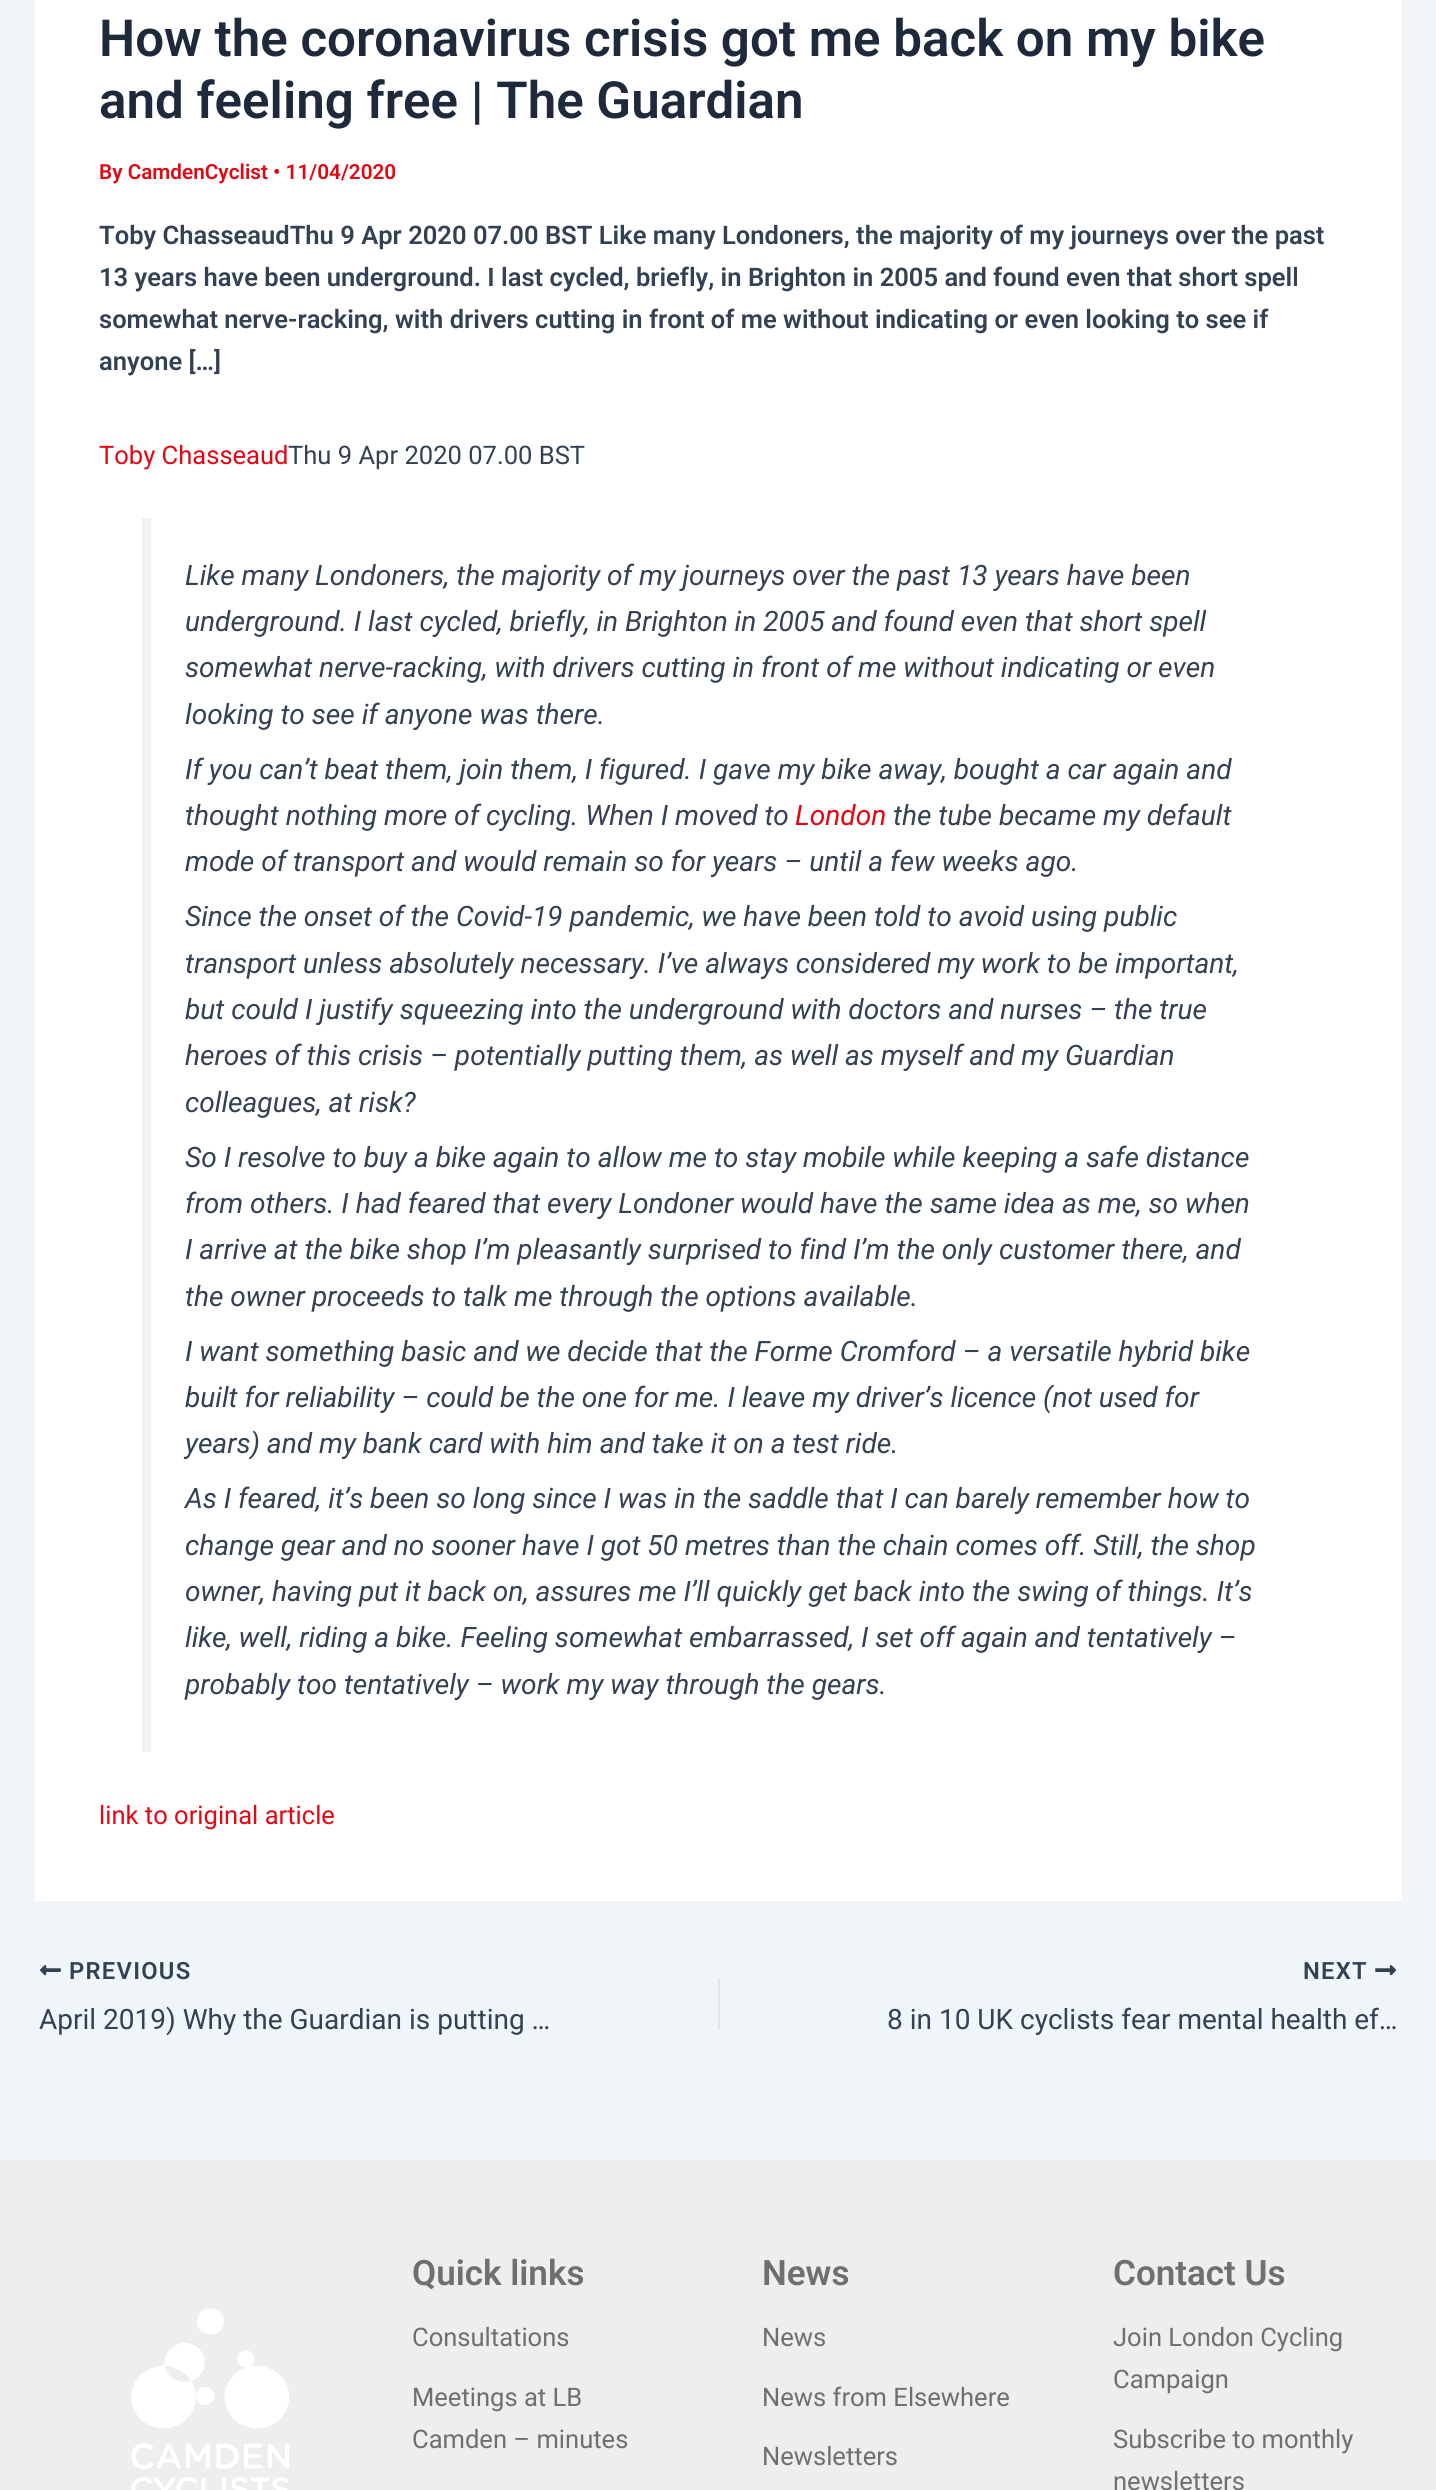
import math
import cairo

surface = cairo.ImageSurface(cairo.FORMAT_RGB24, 1436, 2490)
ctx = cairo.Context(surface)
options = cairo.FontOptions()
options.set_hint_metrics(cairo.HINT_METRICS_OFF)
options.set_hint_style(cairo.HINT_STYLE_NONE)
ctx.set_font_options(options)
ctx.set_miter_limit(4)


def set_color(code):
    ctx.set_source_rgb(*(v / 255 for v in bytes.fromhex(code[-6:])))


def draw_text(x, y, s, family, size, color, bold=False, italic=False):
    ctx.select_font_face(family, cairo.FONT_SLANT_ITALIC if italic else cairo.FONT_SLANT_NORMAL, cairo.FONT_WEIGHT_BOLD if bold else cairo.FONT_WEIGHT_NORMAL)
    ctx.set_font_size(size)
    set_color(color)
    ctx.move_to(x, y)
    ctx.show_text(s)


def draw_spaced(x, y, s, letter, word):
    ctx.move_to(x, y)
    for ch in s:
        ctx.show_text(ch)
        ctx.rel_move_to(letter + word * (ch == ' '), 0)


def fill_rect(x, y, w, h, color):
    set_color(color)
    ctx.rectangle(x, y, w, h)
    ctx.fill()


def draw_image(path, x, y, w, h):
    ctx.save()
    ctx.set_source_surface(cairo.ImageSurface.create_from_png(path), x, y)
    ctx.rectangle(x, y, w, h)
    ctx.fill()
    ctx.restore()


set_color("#f0f5fa")
ctx.paint()
fill_rect(35, 0, 1367, 1901, "#ffffff")
draw_text(99, 56, "How the coronavirus crisis got me back on my bike", "Roboto SemiBold", 51.1, "#1e293b")
draw_text(99, 118, "and feeling free | The Guardian", "Roboto SemiBold", 51.1, "#1e293b")
draw_text(99, 179, "By CamdenCyclist • 11/04/2020", "Roboto SemiBold", 20.75, "#e30613")
draw_text(99, 244, "Toby ChasseaudThu 9 Apr 2020 07.00 BST Like many Londoners, the majority of my journeys over the past", "Roboto SemiBold", 25.55, "#334155")
draw_text(99, 286, "13 years have been underground. I last cycled, briefly, in Brighton in 2005 and found even that short spell", "Roboto SemiBold", 25.55, "#334155")
draw_text(99, 328, "somewhat nerve-racking, with drivers cutting in front of me without indicating or even looking to see if", "Roboto SemiBold", 25.55, "#334155")
draw_text(99, 370, "anyone […]", "Roboto SemiBold", 25.55, "#334155")
draw_text(99, 464, "Toby Chasseaud", "Roboto", 25.55, "#e30613")
draw_text(288, 464, "Thu 9 Apr 2020 07.00 BST", "Roboto", 25.55, "#334155")
fill_rect(142, 518, 9, 1234, "#f2f2f2")
draw_text(185, 585, "Like many Londoners, the majority of my journeys over the past 13 years have been", "Roboto", 28.1, "#334155", italic=True)
draw_text(185, 631, "underground. I last cycled, briefly, in Brighton in 2005 and found even that short spell", "Roboto", 28.1, "#334155", italic=True)
draw_text(185, 677, "somewhat nerve-racking, with drivers cutting in front of me without indicating or even", "Roboto", 28.1, "#334155", italic=True)
draw_text(185, 724, "looking to see if anyone was there.", "Roboto", 28.1, "#334155", italic=True)
draw_text(185, 779, "If you can’t beat them, join them, I figured. I gave my bike away, bought a car again and", "Roboto", 28.1, "#334155", italic=True)
draw_text(185, 825, "thought nothing more of cycling. When I moved to", "Roboto", 28.1, "#334155", italic=True)
draw_text(795, 825, "London", "Roboto", 28.1, "#e30613", italic=True)
draw_text(893, 825, "the tube became my default", "Roboto", 28.1, "#334155", italic=True)
draw_text(185, 871, "mode of transport and would remain so for years – until a few weeks ago.", "Roboto", 28.1, "#334155", italic=True)
draw_text(185, 926, "Since the onset of the Covid-19 pandemic, we have been told to avoid using public", "Roboto", 28.1, "#334155", italic=True)
draw_text(185, 973, "transport unless absolutely necessary. I’ve always considered my work to be important,", "Roboto", 28.1, "#334155", italic=True)
draw_text(185, 1019, "but could I justify squeezing into the underground with doctors and nurses – the true", "Roboto", 28.1, "#334155", italic=True)
draw_text(185, 1065, "heroes of this crisis – potentially putting them, as well as myself and my Guardian", "Roboto", 28.1, "#334155", italic=True)
draw_text(185, 1112, "colleagues, at risk?", "Roboto", 28.1, "#334155", italic=True)
draw_text(185, 1167, "So I resolve to buy a bike again to allow me to stay mobile while keeping a safe distance", "Roboto", 28.1, "#334155", italic=True)
draw_text(185, 1213, "from others. I had feared that every Londoner would have the same idea as me, so when", "Roboto", 28.1, "#334155", italic=True)
draw_text(185, 1259, "I arrive at the bike shop I’m pleasantly surprised to find I’m the only customer there, and", "Roboto", 28.1, "#334155", italic=True)
draw_text(185, 1306, "the owner proceeds to talk me through the options available.", "Roboto", 28.1, "#334155", italic=True)
draw_text(185, 1361, "I want something basic and we decide that the Forme Cromford – a versatile hybrid bike", "Roboto", 28.1, "#334155", italic=True)
draw_text(185, 1407, "built for reliability – could be the one for me. I leave my driver’s licence (not used for", "Roboto", 28.1, "#334155", italic=True)
draw_text(185, 1453, "years) and my bank card with him and take it on a test ride.", "Roboto", 28.1, "#334155", italic=True)
draw_text(185, 1508, "As I feared, it’s been so long since I was in the saddle that I can barely remember how to", "Roboto", 28.1, "#334155", italic=True)
draw_text(185, 1555, "change gear and no sooner have I got 50 metres than the chain comes off. Still, the shop", "Roboto", 28.1, "#334155", italic=True)
draw_text(185, 1601, "owner, having put it back on, assures me I’ll quickly get back into the swing of things. It’s", "Roboto", 28.1, "#334155", italic=True)
draw_text(185, 1647, "like, well, riding a bike. Feeling somewhat embarrassed, I set off again and tentatively –", "Roboto", 28.1, "#334155", italic=True)
draw_text(185, 1694, "probably too tentatively – work my way through the gears.", "Roboto", 28.1, "#334155", italic=True)
draw_text(99, 1824, "link to original article", "Roboto", 25.55, "#e30613")
draw_image("assets/img1.png", 40, 1965, 21, 11)
ctx.select_font_face("Roboto SemiBold")
ctx.set_font_size(23.75)
set_color("#334155")
draw_spaced(69, 1979, "PREVIOUS", 1.25, 0)
draw_text(39, 2029, "April 2019) Why the Guardian is putting …", "Roboto", 28, "#334155")
fill_rect(718, 1978, 2, 52, "#e1e8ed")
ctx.select_font_face("Roboto SemiBold")
ctx.set_font_size(23.75)
set_color("#334155")
draw_spaced(1303, 1979, "NEXT", 1.25, 0)
draw_image("assets/img2.png", 1375, 1965, 21, 11)
draw_text(887, 2029, "8 in 10 UK cyclists fear mental health ef…", "Roboto", 28, "#334155")
fill_rect(0, 2160, 1436, 330, "#eeeeee")
draw_image("assets/img3.png", 131, 2308, 158, 182)
draw_text(412, 2285, "Quick links", "Roboto SemiBold", 35, "#6f6f6f")
draw_text(412, 2346, "Consultations", "Roboto", 25.55, "#6f6f6f")
draw_text(412, 2406, "Meetings at LB", "Roboto", 25.55, "#6f6f6f")
draw_text(412, 2448, "Camden – minutes", "Roboto", 25.55, "#6f6f6f")
draw_text(762, 2285, "News", "Roboto SemiBold", 35, "#6f6f6f")
draw_text(762, 2346, "News", "Roboto", 25.55, "#6f6f6f")
draw_text(762, 2406, "News from Elsewhere", "Roboto", 25.55, "#6f6f6f")
draw_text(762, 2465, "Newsletters", "Roboto", 25.55, "#6f6f6f")
draw_text(1113, 2285, "Contact Us", "Roboto SemiBold", 35, "#6f6f6f")
draw_text(1113, 2346, "Join London Cycling", "Roboto", 25.55, "#6f6f6f")
draw_text(1113, 2388, "Campaign", "Roboto", 25.55, "#6f6f6f")
draw_text(1113, 2448, "Subscribe to monthly", "Roboto", 25.55, "#6f6f6f")
draw_text(1113, 2490, "newsletters", "Roboto", 25.55, "#6f6f6f")
surface.write_to_png("output.png")
